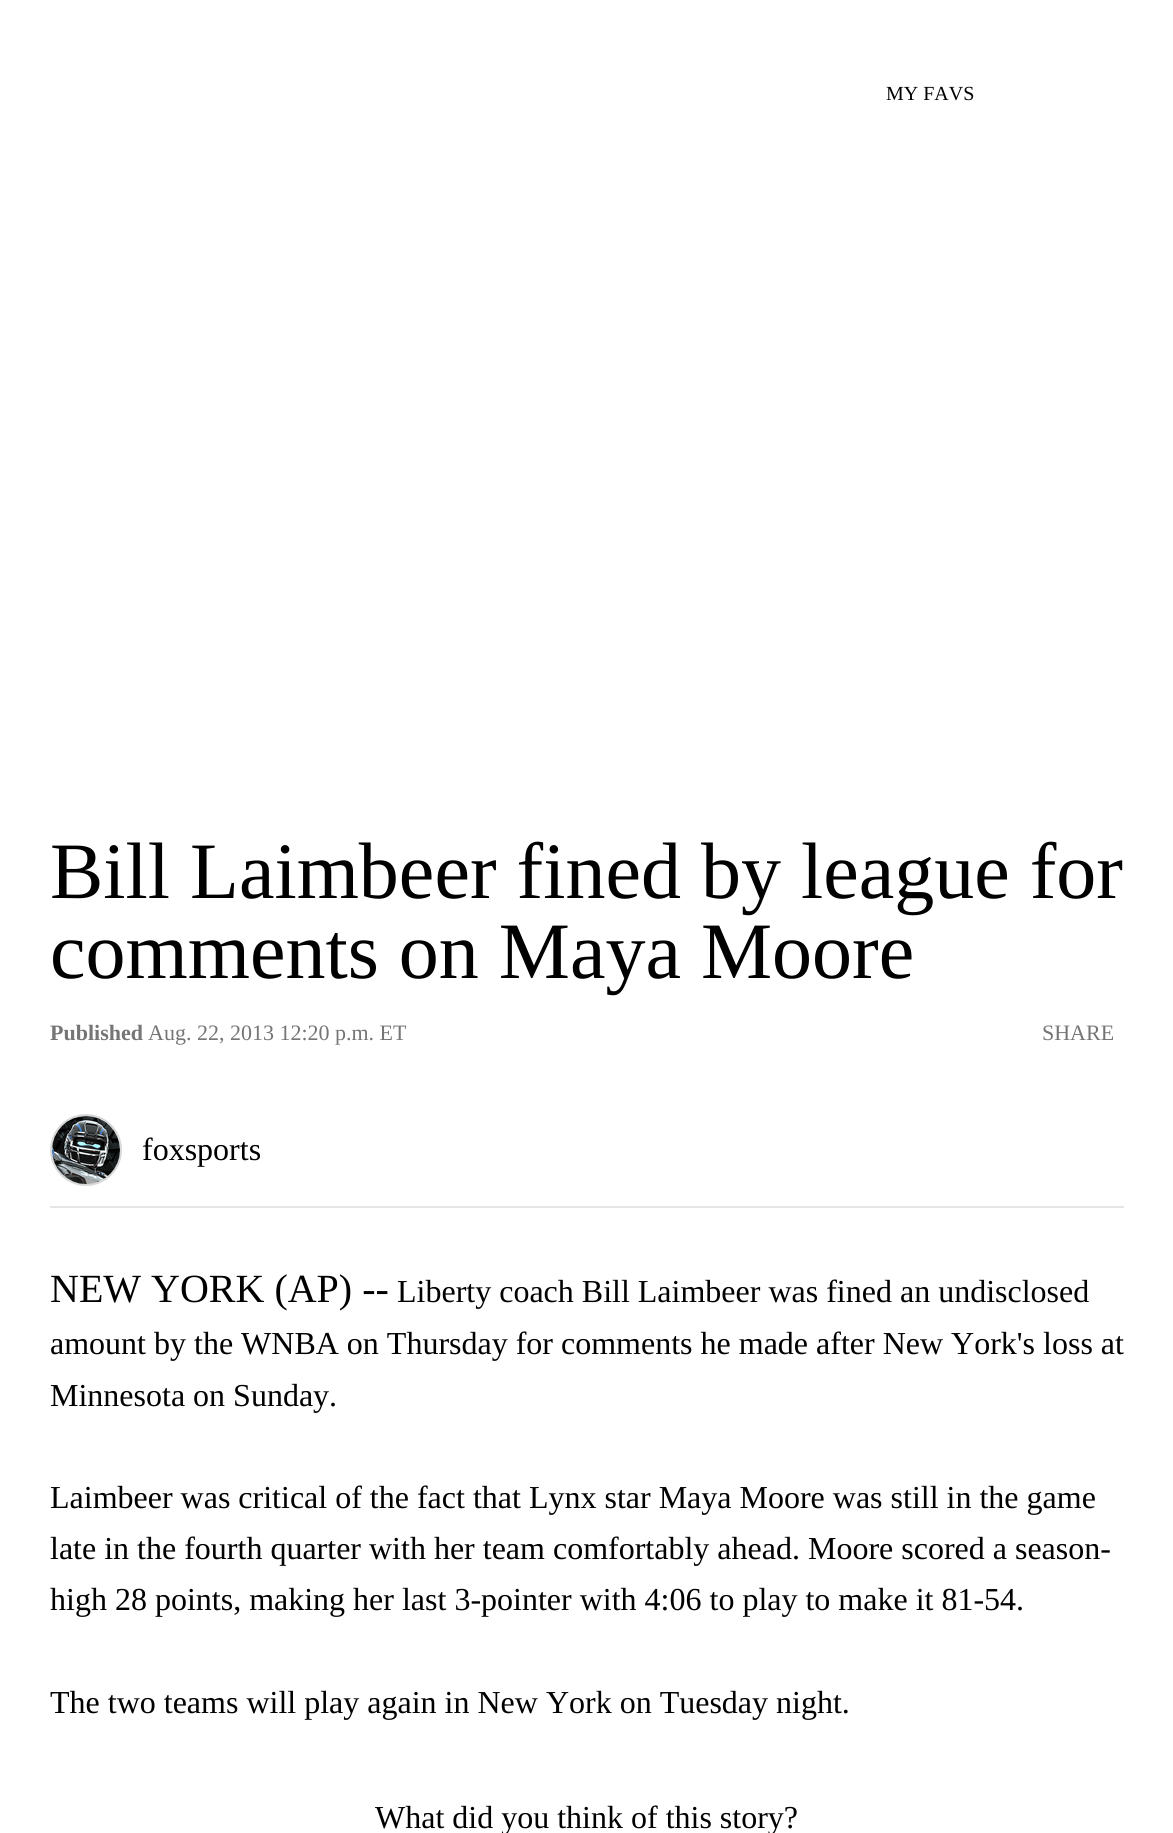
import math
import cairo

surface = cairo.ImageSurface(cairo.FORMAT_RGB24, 1173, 1833)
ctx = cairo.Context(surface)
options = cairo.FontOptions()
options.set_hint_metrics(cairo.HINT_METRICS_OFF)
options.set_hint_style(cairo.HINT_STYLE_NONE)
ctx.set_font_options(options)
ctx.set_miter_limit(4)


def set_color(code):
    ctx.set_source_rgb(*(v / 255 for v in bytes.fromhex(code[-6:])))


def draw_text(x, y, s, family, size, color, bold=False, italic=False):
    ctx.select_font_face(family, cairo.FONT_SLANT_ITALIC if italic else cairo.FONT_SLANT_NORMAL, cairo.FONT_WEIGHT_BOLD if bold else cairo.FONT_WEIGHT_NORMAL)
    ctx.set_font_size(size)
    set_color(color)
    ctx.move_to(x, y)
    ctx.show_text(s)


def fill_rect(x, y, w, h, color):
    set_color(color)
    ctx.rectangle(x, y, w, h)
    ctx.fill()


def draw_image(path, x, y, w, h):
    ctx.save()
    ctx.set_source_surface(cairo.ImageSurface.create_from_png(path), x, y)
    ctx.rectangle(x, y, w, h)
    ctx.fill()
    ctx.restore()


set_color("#ffffff")
ctx.paint()
draw_text(886, 100, "MY FAVS", "Liberation Serif", 20, "#000000")
draw_text(50, 898, "Bill Laimbeer fined by league for", "Liberation Serif", 80, "#000000")
draw_text(50, 978, "comments on Maya Moore", "Liberation Serif", 80, "#000000")
draw_text(50, 1040, "Published", "Liberation Serif", 22, "#757575", bold=True)
draw_text(148, 1040, "Aug. 22, 2013 12:20 p.m. ET", "Liberation Serif", 22, "#757575")
draw_text(1042, 1040, "SHARE", "Liberation Serif", 22, "#757575")
fill_rect(50, 1206, 1074, 2, "#e5e5e5")
ctx.new_path()
ctx.arc(86, 1150, 35, 0, 2 * math.pi)
set_color("#d9d9d9")
ctx.stroke()
draw_image("assets/img1.png", 52, 1116, 68, 68)
draw_text(142, 1160, "foxsports", "Liberation Serif", 32, "#000000")
draw_text(50, 1302, "NEW YORK (AP) --", "Liberation Serif", 40, "#000000")
draw_text(397, 1302, "Liberty coach Bill Laimbeer was fined an undisclosed", "Liberation Serif", 32, "#000000")
draw_text(50, 1354, "amount by the WNBA on Thursday for comments he made after New York's loss at", "Liberation Serif", 32, "#000000")
draw_text(50, 1406, "Minnesota on Sunday.", "Liberation Serif", 32, "#000000")
draw_text(50, 1508, "Laimbeer was critical of the fact that Lynx star Maya Moore was still in the game", "Liberation Serif", 32, "#000000")
draw_text(50, 1559, "late in the fourth quarter with her team comfortably ahead. Moore scored a season-", "Liberation Serif", 32, "#000000")
draw_text(50, 1610, "high 28 points, making her last 3-pointer with 4:06 to play to make it 81-54.", "Liberation Serif", 32, "#000000")
draw_text(50, 1713, "The two teams will play again in New York on Tuesday night.", "Liberation Serif", 32, "#000000")
draw_text(375, 1828, "What did you think of this story?", "Liberation Serif", 32, "#000000")
surface.write_to_png("output.png")
